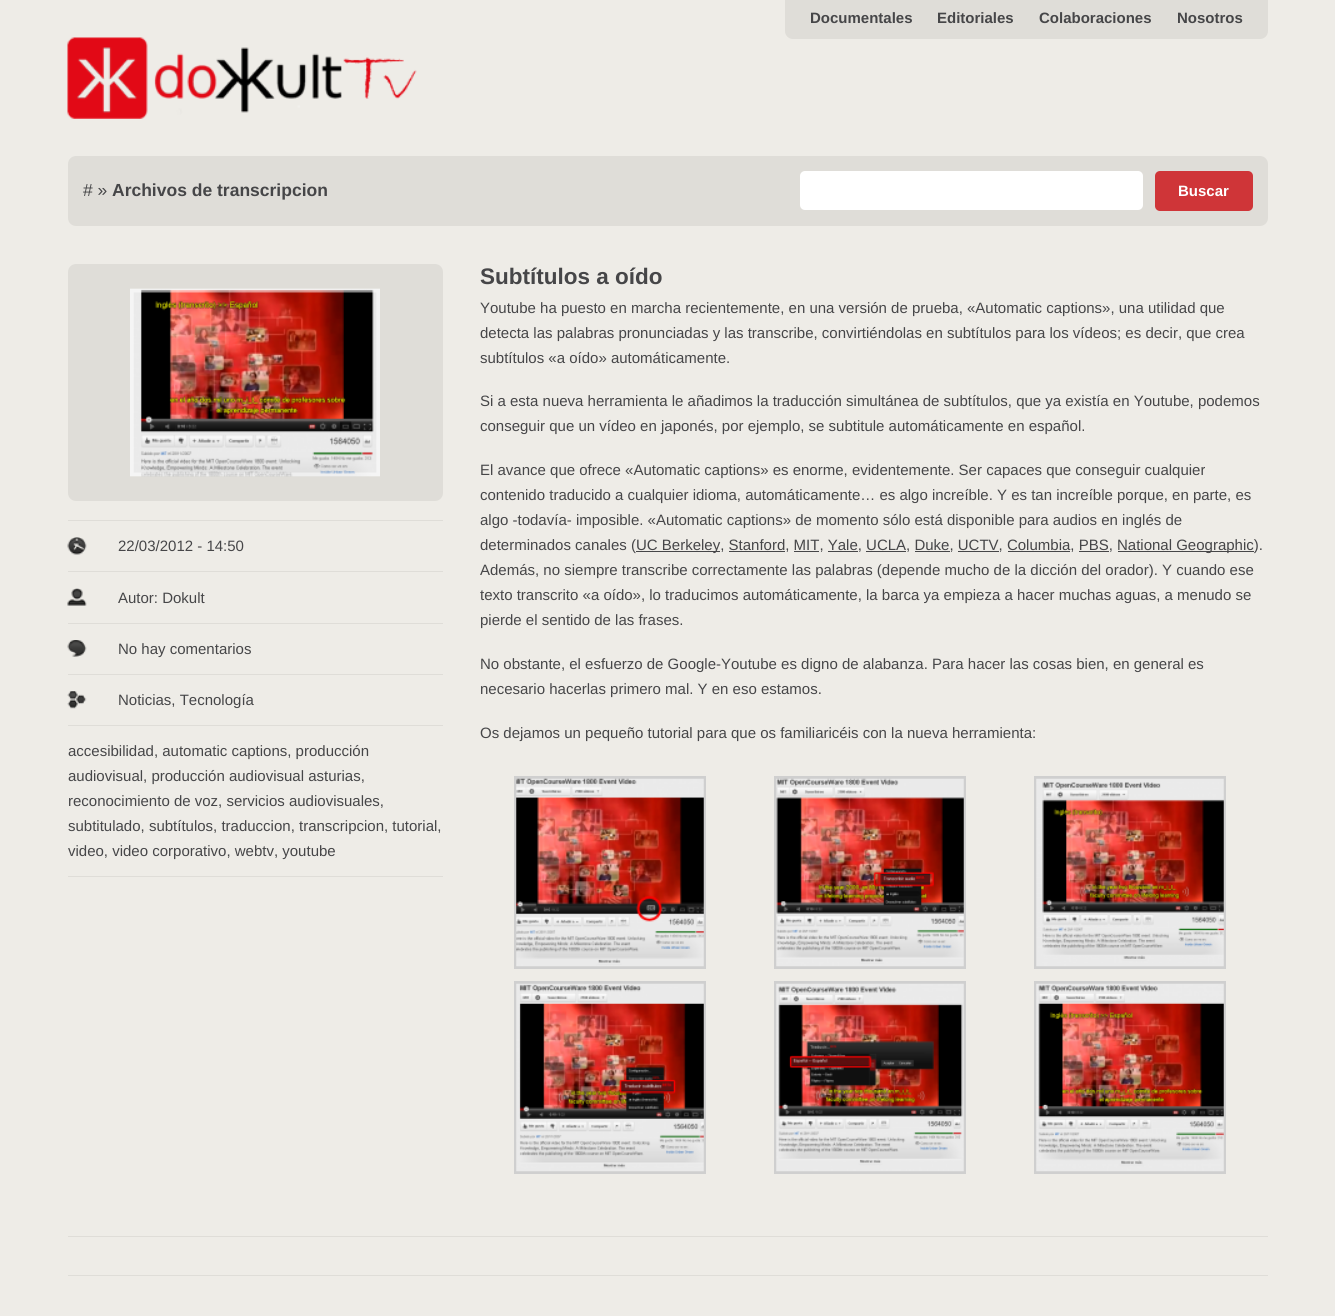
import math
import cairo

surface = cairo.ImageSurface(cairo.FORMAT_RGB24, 1335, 1316)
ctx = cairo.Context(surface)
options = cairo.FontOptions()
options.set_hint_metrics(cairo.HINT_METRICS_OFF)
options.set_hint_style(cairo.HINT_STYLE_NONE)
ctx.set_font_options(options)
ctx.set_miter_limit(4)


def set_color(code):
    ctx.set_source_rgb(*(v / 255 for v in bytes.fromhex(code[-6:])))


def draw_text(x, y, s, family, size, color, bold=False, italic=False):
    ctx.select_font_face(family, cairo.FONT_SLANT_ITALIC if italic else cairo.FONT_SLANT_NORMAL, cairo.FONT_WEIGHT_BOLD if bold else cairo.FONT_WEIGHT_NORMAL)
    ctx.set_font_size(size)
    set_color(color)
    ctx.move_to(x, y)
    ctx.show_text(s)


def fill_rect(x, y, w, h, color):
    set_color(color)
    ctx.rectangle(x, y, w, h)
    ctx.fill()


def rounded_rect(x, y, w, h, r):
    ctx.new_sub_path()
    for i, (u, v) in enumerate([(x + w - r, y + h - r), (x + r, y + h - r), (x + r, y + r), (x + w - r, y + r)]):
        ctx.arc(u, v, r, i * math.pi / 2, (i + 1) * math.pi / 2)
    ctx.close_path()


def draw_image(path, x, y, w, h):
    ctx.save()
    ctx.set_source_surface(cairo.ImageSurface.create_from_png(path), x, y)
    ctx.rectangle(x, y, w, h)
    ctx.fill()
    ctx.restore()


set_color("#eeece7")
ctx.paint()
set_color("#dfddd8")
ctx.new_path()
ctx.move_to(785, 0)
ctx.line_to(1268, 0)
ctx.line_to(1268, 31)
ctx.curve_to(1268, 35.5, 1264.5, 39, 1260, 39)
ctx.line_to(793, 39)
ctx.curve_to(788.5, 39, 785, 35.5, 785, 31)
ctx.close_path()
ctx.fill()
draw_text(810, 23, "Documentales", "Liberation Sans", 15, "#464648", bold=True)
draw_text(937, 23, "Editoriales", "Liberation Sans", 15, "#464648", bold=True)
draw_text(1039, 23, "Colaboraciones", "Liberation Sans", 15, "#464648", bold=True)
draw_text(1177, 23, "Nosotros", "Liberation Sans", 15, "#464648", bold=True)
draw_image("assets/img1.png", 67, 37, 350, 82)
set_color("#dfddd8")
rounded_rect(68, 156, 1200, 70, 8)
ctx.fill()
draw_text(83, 196, "# »", "Liberation Sans", 17.5, "#464648")
draw_text(112, 196, "Archivos de transcripcion", "Liberation Sans", 17.5, "#464648", bold=True)
set_color("#ffffff")
rounded_rect(800, 171, 343, 39, 5)
ctx.fill()
set_color("#cf3538")
rounded_rect(1155, 171, 98, 40, 5)
ctx.fill()
draw_text(1178, 196, "Buscar", "Liberation Sans", 15, "#ffffff", bold=True)
fill_rect(68, 1236, 1200, 1, "#dfddd8")
rounded_rect(68, 264, 375, 237, 8)
ctx.fill()
draw_image("assets/img2.png", 130, 288, 250, 189)
draw_image("assets/img3.png", 130, 288, 250, 189)
fill_rect(68, 520, 375, 1, "#dfddd8")
fill_rect(68, 571, 375, 1, "#dfddd8")
draw_image("assets/img4.png", 67, 537, 20, 18)
draw_text(118, 551, "22/03/2012 - 14:50", "Liberation Sans", 15, "#464648")
fill_rect(68, 623, 375, 1, "#dfddd8")
draw_image("assets/img5.png", 67, 588, 20, 18)
draw_text(118, 603, "Autor: Dokult", "Liberation Sans", 15, "#464648")
fill_rect(68, 674, 375, 1, "#dfddd8")
draw_image("assets/img6.png", 67, 640, 20, 17)
draw_text(118, 654, "No hay comentarios", "Liberation Sans", 15, "#464648")
fill_rect(68, 725, 375, 1, "#dfddd8")
draw_image("assets/img7.png", 67, 691, 20, 18)
draw_text(118, 705, "Noticias, Tecnología", "Liberation Sans", 15, "#464648")
fill_rect(68, 876, 375, 1, "#dfddd8")
draw_text(68, 756, "accesibilidad, automatic captions, producción", "Liberation Sans", 15, "#464648")
draw_text(68, 781, "audiovisual, producción audiovisual asturias,", "Liberation Sans", 15, "#464648")
draw_text(68, 806, "reconocimiento de voz, servicios audiovisuales,", "Liberation Sans", 15, "#464648")
draw_text(68, 831, "subtitulado, subtítulos, traduccion, transcripcion, tutorial,", "Liberation Sans", 15, "#464648")
draw_text(68, 856, "video, video corporativo, webtv, youtube", "Liberation Sans", 15, "#464648")
draw_text(480, 284, "Subtítulos a oído", "Liberation Sans", 22.5, "#464648", bold=True)
draw_text(480, 313, "Youtube ha puesto en marcha recientemente, en una versión de prueba, «Automatic captions», una utilidad que", "Liberation Sans", 15, "#464648")
draw_text(480, 338, "detecta las palabras pronunciadas y las transcribe, convirtiéndolas en subtítulos para los vídeos; es decir, que crea", "Liberation Sans", 15, "#464648")
draw_text(480, 363, "subtítulos «a oído» automáticamente.", "Liberation Sans", 15, "#464648")
draw_text(480, 406, "Si a esta nueva herramienta le añadimos la traducción simultánea de subtítulos, que ya existía en Youtube, podemos", "Liberation Sans", 15, "#464648")
draw_text(480, 431, "conseguir que un vídeo en japonés, por ejemplo, se subtitule automáticamente en español.", "Liberation Sans", 15, "#464648")
draw_text(480, 475, "El avance que ofrece «Automatic captions» es enorme, evidentemente. Ser capaces que conseguir cualquier", "Liberation Sans", 15, "#464648")
draw_text(480, 500, "contenido traducido a cualquier idioma, automáticamente… es algo increíble. Y es tan increíble porque, en parte, es", "Liberation Sans", 15, "#464648")
draw_text(480, 525, "algo -todavía- imposible. «Automatic captions» de momento sólo está disponible para audios en inglés de", "Liberation Sans", 15, "#464648")
draw_text(480, 550, "determinados canales (", "Liberation Sans", 15, "#464648")
fill_rect(636, 551, 84, 1, "#464648")
draw_text(636, 550, "UC Berkeley, Stanford, MIT, Yale, UCLA, Duke, UCTV, Columbia, PBS,", "Liberation Sans", 15, "#464648")
fill_rect(1118, 551, 136, 1, "#464648")
draw_text(1117, 550, "National Geographic).", "Liberation Sans", 15, "#464648")
fill_rect(729, 551, 56, 1, "#464648")
fill_rect(794, 551, 25, 1, "#464648")
fill_rect(828, 551, 30, 1, "#464648")
fill_rect(866, 551, 40, 1, "#464648")
fill_rect(915, 551, 35, 1, "#464648")
fill_rect(958, 551, 41, 1, "#464648")
fill_rect(1008, 551, 62, 1, "#464648")
fill_rect(1079, 551, 30, 1, "#464648")
draw_text(480, 575, "Además, no siempre transcribe correctamente las palabras (depende mucho de la dicción del orador). Y cuando ese", "Liberation Sans", 15, "#464648")
draw_text(480, 600, "texto transcrito «a oído», lo traducimos automáticamente, la barca ya empieza a hacer muchas aguas, a menudo se", "Liberation Sans", 15, "#464648")
draw_text(480, 625, "pierde el sentido de las frases.", "Liberation Sans", 15, "#464648")
draw_text(480, 669, "No obstante, el esfuerzo de Google-Youtube es digno de alabanza. Para hacer las cosas bien, en general es", "Liberation Sans", 15, "#464648")
draw_text(480, 694, "necesario hacerlas primero mal. Y en eso estamos.", "Liberation Sans", 15, "#464648")
draw_text(480, 738, "Os dejamos un pequeño tutorial para que os familiaricéis con la nueva herramienta:", "Liberation Sans", 15, "#464648")
ctx.rectangle(515.5, 777.5, 189, 190)
set_color("#cfcfcf")
ctx.set_line_width(3)
ctx.stroke()
draw_image("assets/img8.png", 516, 778, 188, 189)
ctx.rectangle(775.5, 777.5, 189, 190)
ctx.stroke()
draw_image("assets/img9.png", 776, 778, 188, 189)
ctx.rectangle(1035.5, 777.5, 189, 190)
ctx.stroke()
draw_image("assets/img10.png", 1036, 778, 188, 189)
ctx.rectangle(515.5, 982.5, 189, 190)
ctx.stroke()
draw_image("assets/img11.png", 516, 983, 188, 189)
ctx.rectangle(775.5, 982.5, 189, 190)
ctx.stroke()
draw_image("assets/img12.png", 776, 983, 188, 189)
ctx.rectangle(1035.5, 982.5, 189, 190)
ctx.stroke()
draw_image("assets/img13.png", 1036, 983, 188, 189)
fill_rect(68, 1275, 1200, 1, "#dfddd8")
surface.write_to_png("output.png")
